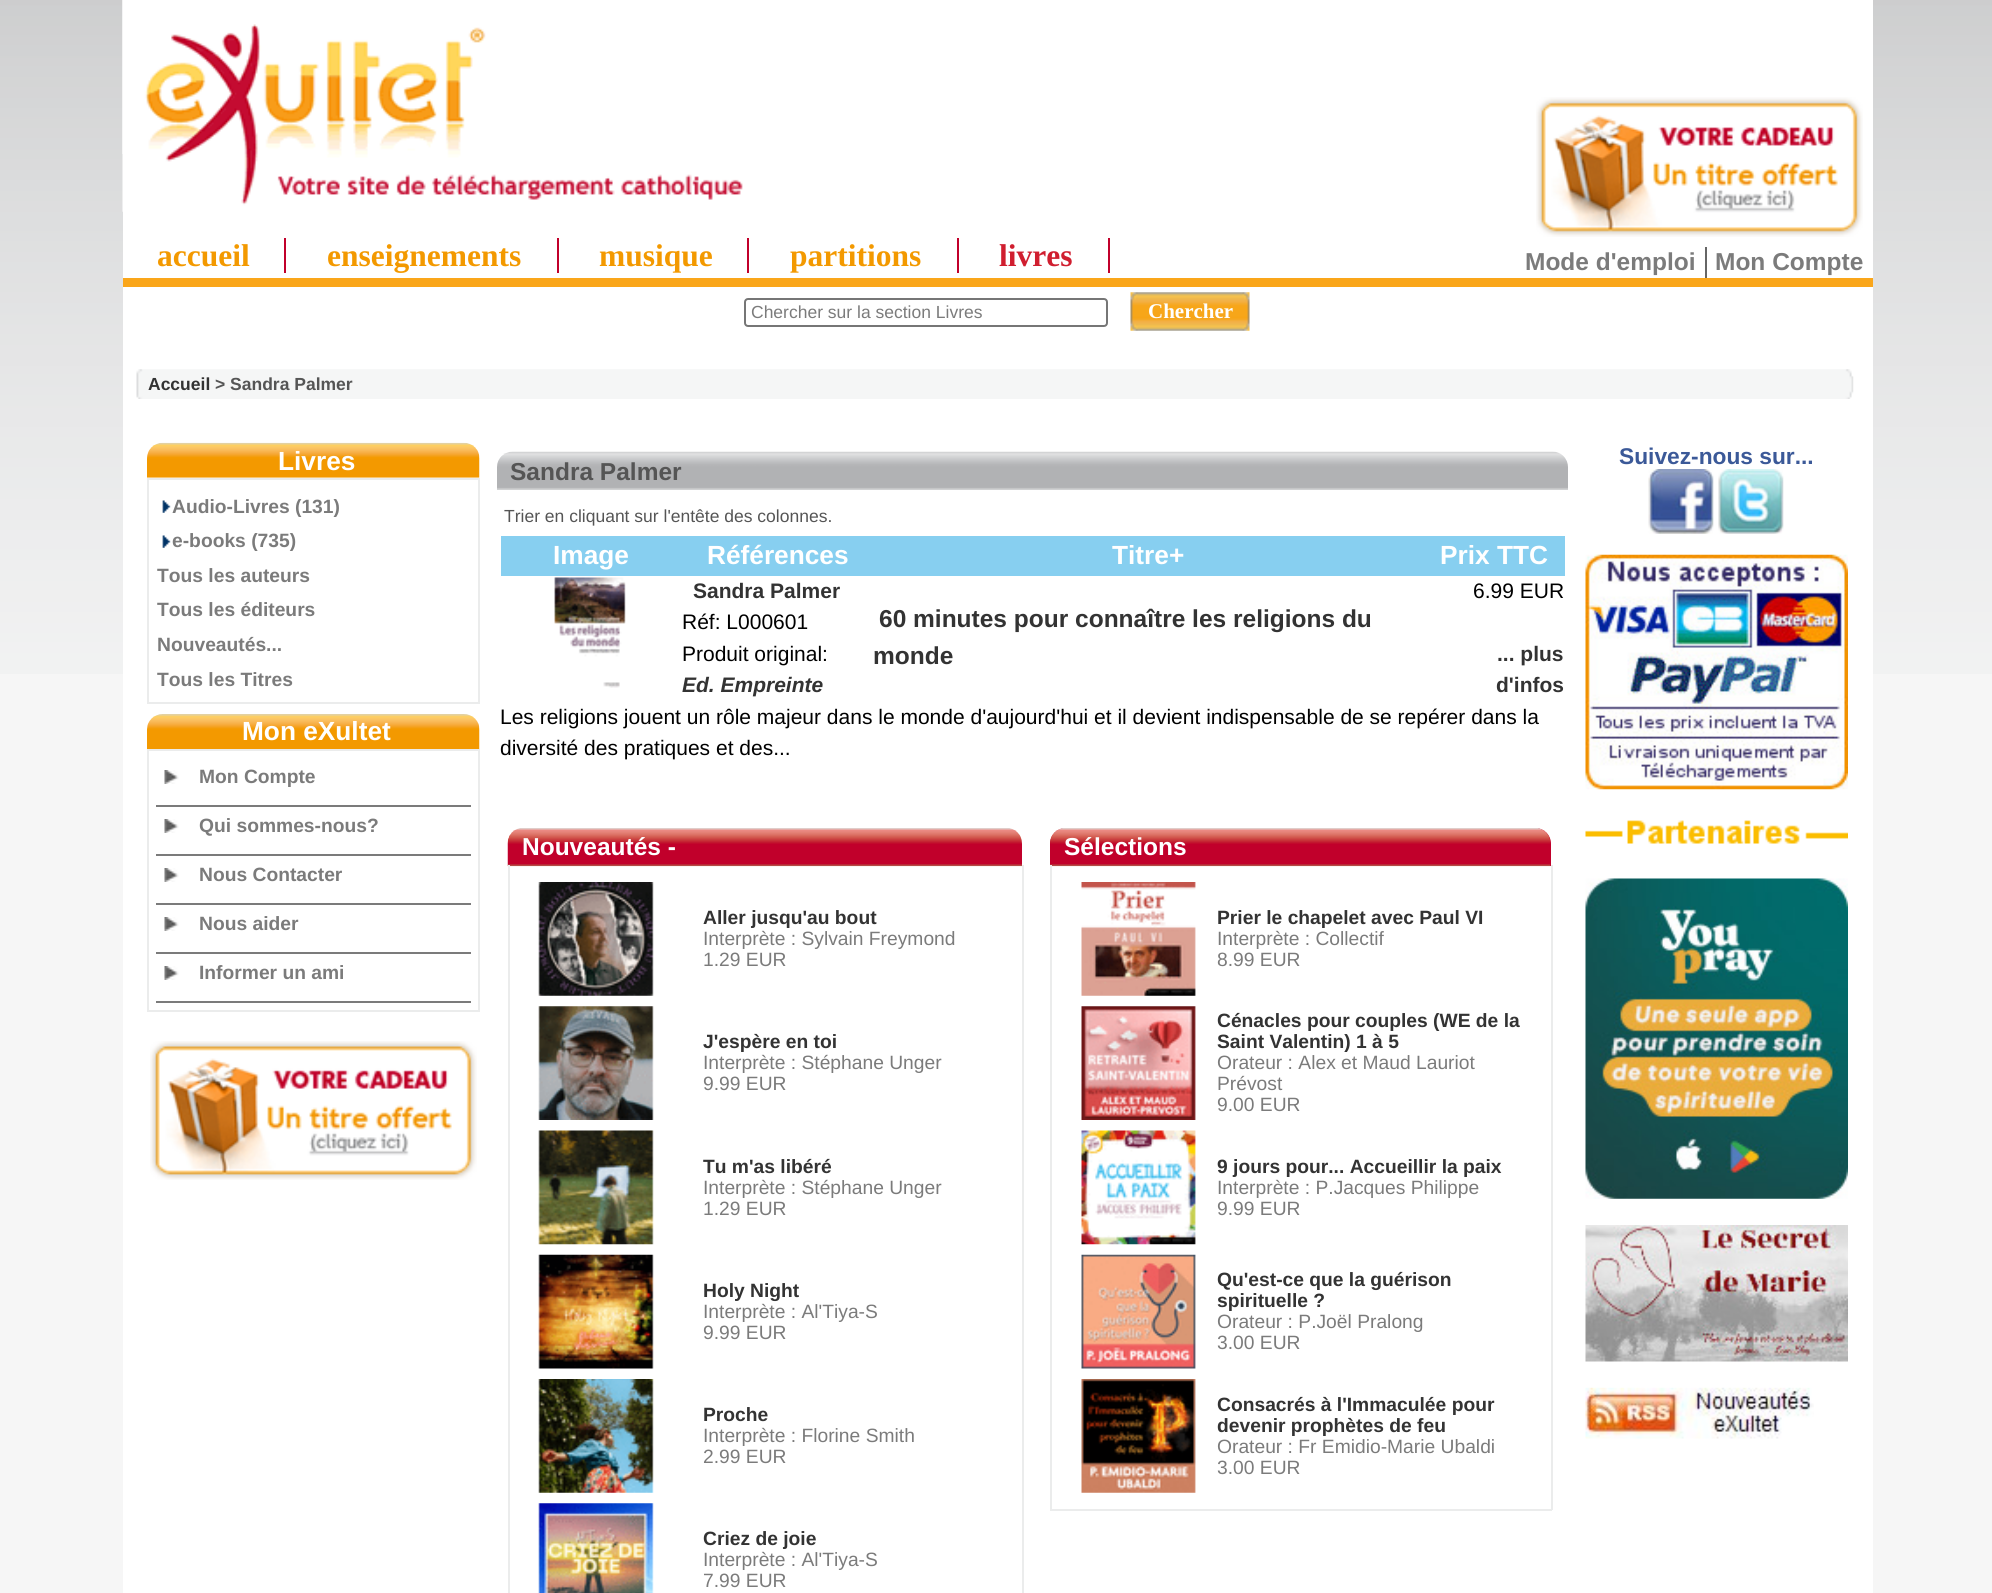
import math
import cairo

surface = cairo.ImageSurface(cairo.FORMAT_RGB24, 1992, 1593)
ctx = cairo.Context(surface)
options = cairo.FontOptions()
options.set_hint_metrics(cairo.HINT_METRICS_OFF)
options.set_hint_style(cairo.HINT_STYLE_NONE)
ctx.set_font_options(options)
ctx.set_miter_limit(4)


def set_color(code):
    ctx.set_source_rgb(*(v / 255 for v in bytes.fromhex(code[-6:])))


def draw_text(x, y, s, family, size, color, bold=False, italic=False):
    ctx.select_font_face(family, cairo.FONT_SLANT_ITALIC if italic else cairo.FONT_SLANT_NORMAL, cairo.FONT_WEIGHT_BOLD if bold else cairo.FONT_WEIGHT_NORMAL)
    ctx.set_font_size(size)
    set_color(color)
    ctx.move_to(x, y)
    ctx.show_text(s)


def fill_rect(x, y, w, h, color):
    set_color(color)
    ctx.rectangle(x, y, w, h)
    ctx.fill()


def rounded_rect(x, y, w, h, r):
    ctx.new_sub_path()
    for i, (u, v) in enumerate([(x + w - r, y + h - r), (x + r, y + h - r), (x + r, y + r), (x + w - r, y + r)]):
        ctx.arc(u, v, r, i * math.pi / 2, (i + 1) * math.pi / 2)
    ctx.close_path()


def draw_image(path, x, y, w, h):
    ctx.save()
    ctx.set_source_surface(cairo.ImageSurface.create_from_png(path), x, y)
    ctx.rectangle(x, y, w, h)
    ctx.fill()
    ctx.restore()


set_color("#f6f6f6")
ctx.paint()
draw_image("assets/img1.png", 0, 0, 1992, 674)
fill_rect(123, 0, 1750, 1593, "#ffffff")
ctx.set_source_rgba(1, 1, 1, 0.5)
ctx.rectangle(122, 0, 1, 154)
ctx.fill()
draw_image("assets/img2.png", 122, 0, 621, 212)
draw_image("assets/img3.png", 1536, 97, 327, 140)
fill_rect(123, 278, 1750, 9, "#faa61a")
draw_text(157, 266, "accueil", "Liberation Serif", 31.5, "#f39900", bold=True)
fill_rect(284, 238, 2, 35, "#c1002b")
draw_text(327, 266, "enseignements", "Liberation Serif", 31.5, "#f39900", bold=True)
fill_rect(557, 238, 2, 35, "#c1002b")
draw_text(599, 266, "musique", "Liberation Serif", 31.5, "#f39900", bold=True)
fill_rect(747, 238, 2, 35, "#c1002b")
draw_text(790, 266, "partitions", "Liberation Serif", 31.5, "#f39900", bold=True)
fill_rect(957, 238, 2, 35, "#c1002b")
draw_text(999, 266, "livres", "Liberation Serif", 31.5, "#d01e2f", bold=True)
fill_rect(1108, 238, 2, 35, "#c1002b")
draw_text(1525, 270, "Mode d'emploi", "Liberation Sans", 24.5, "#7b7b7b", bold=True)
fill_rect(1705, 247, 2, 31, "#666666")
draw_text(1715, 270, "Mon Compte", "Liberation Sans", 24.5, "#7b7b7b", bold=True)
rounded_rect(745, 299, 362, 27, 3)
set_color("#767676")
ctx.stroke()
draw_text(751, 318, "Chercher sur la section Livres", "Liberation Sans", 17.5, "#7b7b7b")
draw_image("assets/img4.png", 1130, 292, 120, 39)
draw_text(1148, 318, "Chercher", "Liberation Serif", 21, "#ffffff", bold=True)
draw_image("assets/img5.png", 136, 369, 1718, 30)
draw_text(148, 390, "Accueil", "Liberation Sans", 17.5, "#333333", bold=True)
draw_text(215, 390, "> Sandra Palmer", "Liberation Sans", 17.5, "#555555", bold=True)
draw_image("assets/img6.png", 147, 442, 333, 36)
draw_text(278, 470, "Livres", "Liberation Sans", 26.25, "#ffffff", bold=True)
ctx.rectangle(148, 479, 331, 224)
set_color("#ebecec")
ctx.stroke()
draw_image("assets/img7.png", 162, 500, 9, 13)
draw_text(172, 513, "Audio-Livres (131)", "Liberation Sans", 19.25, "#7b7b7b", bold=True)
draw_image("assets/img7.png", 162, 535, 9, 13)
draw_text(172, 547, "e-books (735)", "Liberation Sans", 19.25, "#7b7b7b", bold=True)
draw_text(157, 582, "Tous les auteurs", "Liberation Sans", 19.25, "#7b7b7b", bold=True)
draw_text(157, 616, "Tous les éditeurs", "Liberation Sans", 19.25, "#7b7b7b", bold=True)
draw_text(157, 651, "Nouveautés...", "Liberation Sans", 19.25, "#7b7b7b", bold=True)
draw_text(157, 686, "Tous les Titres", "Liberation Sans", 19.25, "#7b7b7b", bold=True)
draw_image("assets/img8.png", 147, 714, 333, 35)
draw_text(242, 740, "Mon eXultet", "Liberation Sans", 26.25, "#ffffff", bold=True)
ctx.rectangle(148, 750, 331, 261)
set_color("#ebecec")
ctx.stroke()
fill_rect(156, 805, 315, 2, "#7b7b7b")
draw_image("assets/img9.png", 164, 770, 15, 14)
draw_text(199, 783, "Mon Compte", "Liberation Sans", 19.25, "#7b7b7b", bold=True)
fill_rect(156, 854, 315, 2, "#7b7b7b")
draw_image("assets/img9.png", 164, 819, 15, 14)
draw_text(199, 832, "Qui sommes-nous?", "Liberation Sans", 19.25, "#7b7b7b", bold=True)
fill_rect(156, 903, 315, 2, "#7b7b7b")
draw_image("assets/img9.png", 164, 868, 15, 14)
draw_text(199, 881, "Nous Contacter", "Liberation Sans", 19.25, "#7b7b7b", bold=True)
fill_rect(156, 952, 315, 2, "#7b7b7b")
draw_image("assets/img9.png", 164, 917, 15, 14)
draw_text(199, 930, "Nous aider", "Liberation Sans", 19.25, "#7b7b7b", bold=True)
fill_rect(156, 1001, 315, 2, "#7b7b7b")
draw_image("assets/img9.png", 164, 966, 15, 14)
draw_text(199, 979, "Informer un ami", "Liberation Sans", 19.25, "#7b7b7b", bold=True)
draw_image("assets/img10.png", 150, 1041, 327, 139)
draw_image("assets/img11.png", 497, 451, 1071, 39)
draw_text(510, 480, "Sandra Palmer", "Liberation Sans", 24.5, "#555555", bold=True)
draw_text(504, 522, "Trier en cliquant sur l'entête des colonnes.", "Liberation Sans", 17.5, "#555555")
fill_rect(501, 536, 1064, 40, "#87cff0")
draw_text(553, 564, "Image", "Liberation Sans", 26.25, "#ffffff", bold=True)
draw_text(707, 564, "Références", "Liberation Sans", 26.25, "#ffffff", bold=True)
draw_text(1112, 564, "Titre+", "Liberation Sans", 26.25, "#ffffff", bold=True)
draw_text(1440, 564, "Prix TTC", "Liberation Sans", 26.25, "#ffffff", bold=True)
draw_image("assets/img12.png", 554, 577, 72, 111)
draw_text(693, 598, "Sandra Palmer", "Liberation Sans", 21, "#333333", bold=True)
draw_text(682, 629, "Réf: L000601", "Liberation Sans", 21, "#000000")
draw_text(682, 661, "Produit original:", "Liberation Sans", 21, "#000000")
draw_text(682, 692, "Ed. Empreinte", "Liberation Sans", 21, "#333333", bold=True, italic=True)
draw_text(879, 627, "60 minutes pour connaître les religions du", "Liberation Sans", 24.5, "#333333", bold=True)
draw_text(873, 664, "monde", "Liberation Sans", 24.5, "#333333", bold=True)
draw_text(1473, 598, "6.99 EUR", "Liberation Sans", 21, "#000000")
draw_text(1497, 661, "... plus", "Liberation Sans", 21, "#333333", bold=True)
draw_text(1496, 692, "d'infos", "Liberation Sans", 21, "#333333", bold=True)
draw_text(500, 724, "Les religions jouent un rôle majeur dans le monde d'aujourd'hui et il devient indispensable de se repérer dans la", "Liberation Sans", 21, "#000000")
draw_text(500, 755, "diversité des pratiques et des...", "Liberation Sans", 21, "#000000")
draw_image("assets/img13.png", 507, 828, 515, 39)
draw_text(522, 855, "Nouveautés -", "Liberation Sans", 24.5, "#ffffff", bold=True)
fill_rect(1022, 865, 2, 728, "#ebecec")
fill_rect(508, 865, 2, 728, "#ebecec")
draw_image("assets/img14.png", 538, 882, 116, 114)
draw_text(703, 924, "Aller jusqu'au bout", "Liberation Sans", 19.25, "#333333", bold=True)
draw_text(703, 945, "Interprète : Sylvain Freymond", "Liberation Sans", 19.25, "#7b7b7b")
draw_text(703, 966, "1.29 EUR", "Liberation Sans", 19.25, "#7b7b7b")
draw_image("assets/img15.png", 538, 1006, 116, 114)
draw_text(703, 1048, "J'espère en toi", "Liberation Sans", 19.25, "#333333", bold=True)
draw_text(703, 1069, "Interprète : Stéphane Unger", "Liberation Sans", 19.25, "#7b7b7b")
draw_text(703, 1090, "9.99 EUR", "Liberation Sans", 19.25, "#7b7b7b")
draw_image("assets/img16.png", 538, 1130, 116, 115)
draw_text(703, 1173, "Tu m'as libéré", "Liberation Sans", 19.25, "#333333", bold=True)
draw_text(703, 1194, "Interprète : Stéphane Unger", "Liberation Sans", 19.25, "#7b7b7b")
draw_text(703, 1215, "1.29 EUR", "Liberation Sans", 19.25, "#7b7b7b")
draw_image("assets/img17.png", 538, 1254, 116, 115)
draw_text(703, 1297, "Holy Night", "Liberation Sans", 19.25, "#333333", bold=True)
draw_text(703, 1318, "Interprète : Al'Tiya-S", "Liberation Sans", 19.25, "#7b7b7b")
draw_text(703, 1339, "9.99 EUR", "Liberation Sans", 19.25, "#7b7b7b")
draw_image("assets/img18.png", 538, 1379, 116, 114)
draw_text(703, 1421, "Proche", "Liberation Sans", 19.25, "#333333", bold=True)
draw_text(703, 1442, "Interprète : Florine Smith", "Liberation Sans", 19.25, "#7b7b7b")
draw_text(703, 1463, "2.99 EUR", "Liberation Sans", 19.25, "#7b7b7b")
draw_image("assets/img19.png", 538, 1503, 116, 90)
draw_text(703, 1545, "Criez de joie", "Liberation Sans", 19.25, "#333333", bold=True)
draw_text(703, 1566, "Interprète : Al'Tiya-S", "Liberation Sans", 19.25, "#7b7b7b")
draw_text(703, 1587, "7.99 EUR", "Liberation Sans", 19.25, "#7b7b7b")
set_color("#c1002b")
ctx.new_path()
ctx.move_to(1066, 828)
ctx.line_to(1535, 828)
ctx.curve_to(1544, 828, 1551, 835, 1551, 844)
ctx.line_to(1551, 866)
ctx.line_to(1050, 866)
ctx.line_to(1050, 844)
ctx.curve_to(1050, 835, 1057, 828, 1066, 828)
ctx.close_path()
ctx.fill()
draw_image("assets/img20.png", 1050, 828, 501, 39)
draw_text(1064, 855, "Sélections", "Liberation Sans", 24.5, "#ffffff", bold=True)
fill_rect(1551, 865, 2, 645, "#ebecec")
fill_rect(1050, 1509, 502, 2, "#ebecec")
fill_rect(1050, 865, 2, 645, "#ebecec")
draw_image("assets/img21.png", 1081, 882, 115, 114)
draw_text(1217, 924, "Prier le chapelet avec Paul VI", "Liberation Sans", 19.25, "#333333", bold=True)
draw_text(1217, 945, "Interprète : Collectif", "Liberation Sans", 19.25, "#7b7b7b")
draw_text(1217, 966, "8.99 EUR", "Liberation Sans", 19.25, "#7b7b7b")
draw_image("assets/img22.png", 1081, 1006, 115, 114)
draw_text(1217, 1027, "Cénacles pour couples (WE de la", "Liberation Sans", 19.25, "#333333", bold=True)
draw_text(1217, 1048, "Saint Valentin) 1 à 5", "Liberation Sans", 19.25, "#333333", bold=True)
draw_text(1217, 1069, "Orateur : Alex et Maud Lauriot", "Liberation Sans", 19.25, "#7b7b7b")
draw_text(1217, 1090, "Prévost", "Liberation Sans", 19.25, "#7b7b7b")
draw_text(1217, 1111, "9.00 EUR", "Liberation Sans", 19.25, "#7b7b7b")
draw_image("assets/img23.png", 1081, 1130, 115, 115)
draw_text(1217, 1173, "9 jours pour... Accueillir la paix", "Liberation Sans", 19.25, "#333333", bold=True)
draw_text(1217, 1194, "Interprète : P.Jacques Philippe", "Liberation Sans", 19.25, "#7b7b7b")
draw_text(1217, 1215, "9.99 EUR", "Liberation Sans", 19.25, "#7b7b7b")
draw_image("assets/img24.png", 1081, 1254, 115, 115)
draw_text(1217, 1286, "Qu'est-ce que la guérison", "Liberation Sans", 19.25, "#333333", bold=True)
draw_text(1217, 1307, "spirituelle ?", "Liberation Sans", 19.25, "#333333", bold=True)
draw_text(1217, 1328, "Orateur : P.Joël Pralong", "Liberation Sans", 19.25, "#7b7b7b")
draw_text(1217, 1349, "3.00 EUR", "Liberation Sans", 19.25, "#7b7b7b")
draw_image("assets/img25.png", 1081, 1379, 115, 114)
draw_text(1217, 1411, "Consacrés à l'Immaculée pour", "Liberation Sans", 19.25, "#333333", bold=True)
draw_text(1217, 1432, "devenir prophètes de feu", "Liberation Sans", 19.25, "#333333", bold=True)
draw_text(1217, 1453, "Orateur : Fr Emidio-Marie Ubaldi", "Liberation Sans", 19.25, "#7b7b7b")
draw_text(1217, 1474, "3.00 EUR", "Liberation Sans", 19.25, "#7b7b7b")
draw_text(1619, 464, "Suivez-nous sur...", "Liberation Sans", 22.75, "#3b5998", bold=True)
draw_image("assets/img26.png", 1648, 469, 66, 65)
draw_image("assets/img27.png", 1718, 469, 66, 65)
draw_image("assets/img28.png", 1585, 554, 263, 236)
draw_image("assets/img29.png", 1585, 820, 263, 24)
draw_image("assets/img30.png", 1585, 878, 263, 321)
draw_image("assets/img31.png", 1585, 1225, 263, 137)
draw_image("assets/img32.png", 1585, 1387, 229, 52)
surface.write_to_png("output.png")
